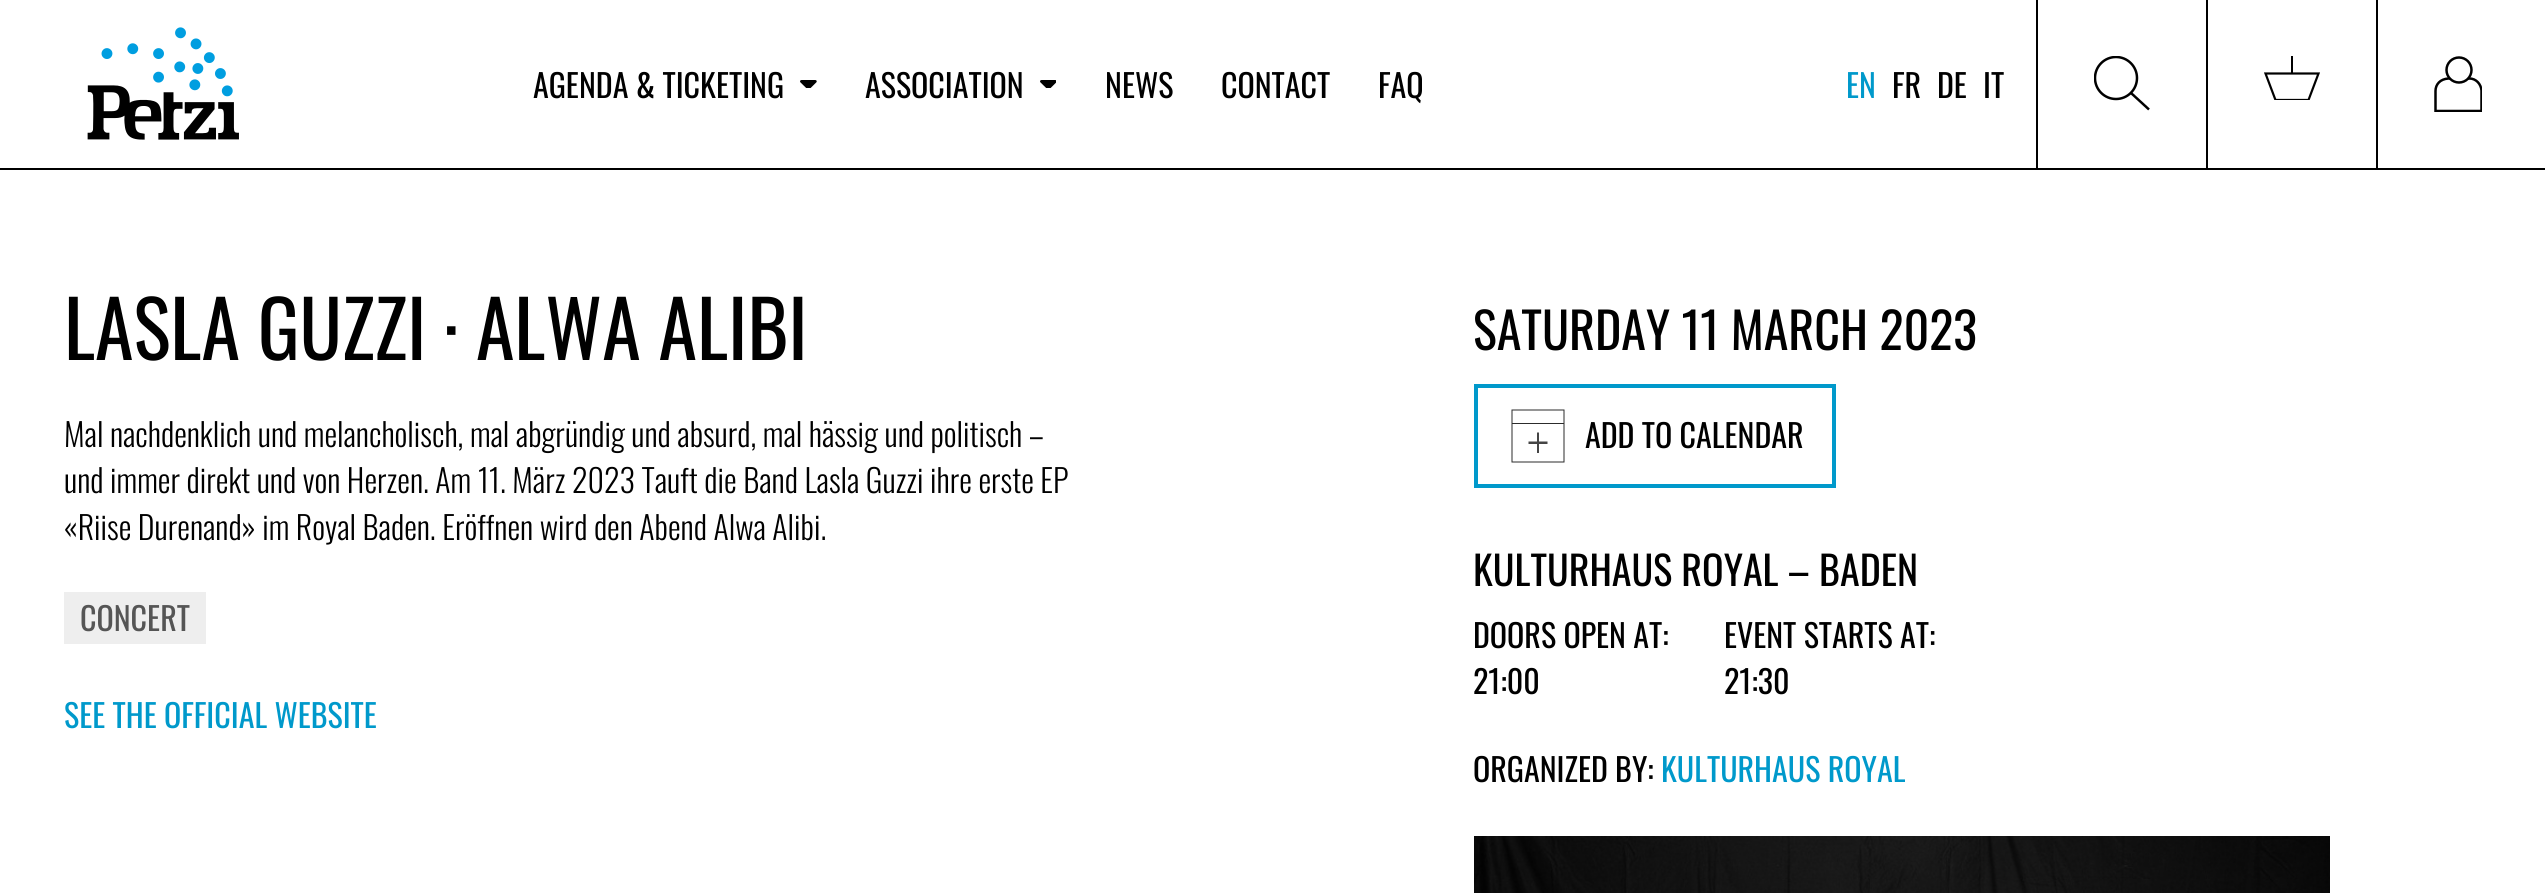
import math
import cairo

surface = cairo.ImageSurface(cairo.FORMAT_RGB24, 2545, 893)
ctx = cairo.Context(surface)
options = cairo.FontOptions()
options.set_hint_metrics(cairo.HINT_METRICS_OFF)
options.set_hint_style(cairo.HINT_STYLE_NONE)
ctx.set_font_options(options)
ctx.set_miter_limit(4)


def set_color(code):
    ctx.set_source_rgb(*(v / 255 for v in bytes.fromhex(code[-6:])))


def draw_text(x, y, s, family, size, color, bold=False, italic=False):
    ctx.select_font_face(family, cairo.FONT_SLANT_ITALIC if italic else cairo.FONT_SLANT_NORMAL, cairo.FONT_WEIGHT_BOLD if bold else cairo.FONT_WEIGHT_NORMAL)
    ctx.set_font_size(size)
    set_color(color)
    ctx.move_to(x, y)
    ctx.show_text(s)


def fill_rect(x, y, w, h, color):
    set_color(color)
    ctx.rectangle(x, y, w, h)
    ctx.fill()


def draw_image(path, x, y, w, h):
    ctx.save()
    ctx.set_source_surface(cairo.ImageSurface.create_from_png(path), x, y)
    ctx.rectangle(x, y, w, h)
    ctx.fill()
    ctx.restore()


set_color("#ffffff")
ctx.paint()
fill_rect(0, 168, 2545, 2, "#000000")
draw_image("assets/img1.png", 87, 27, 152, 113)
draw_text(533, 98, "AGENDA & TICKETING", "Oswald", 32, "#000000")
draw_image("assets/img2.png", 800, 80, 17, 8)
draw_text(865, 98, "ASSOCIATION", "Oswald", 32, "#000000")
draw_image("assets/img3.png", 1040, 80, 16, 8)
draw_text(1105, 98, "NEWS", "Oswald", 32, "#000000")
draw_text(1221, 98, "CONTACT", "Oswald", 32, "#000000")
draw_text(1378, 98, "FAQ", "Oswald", 32, "#000000")
draw_text(1846, 98, "EN", "Oswald", 32, "#0099cb")
draw_text(1892, 98, "FR", "Oswald", 32, "#000000")
draw_text(1937, 98, "DE", "Oswald", 32, "#000000")
draw_text(1983, 98, "IT", "Oswald", 32, "#000000")
fill_rect(2206, 0, 2, 168, "#000000")
fill_rect(2036, 0, 2, 168, "#000000")
ctx.save()
ctx.rectangle(2094, 56, 56, 54)
ctx.clip()
ctx.arc(2116, 78, 21, 0, 2 * math.pi)
ctx.set_line_width(2.5)
ctx.stroke()
ctx.restore()
ctx.new_path()
ctx.move_to(2131, 93)
ctx.line_to(2149, 109.5)
ctx.set_line_width(2.5)
ctx.stroke()
fill_rect(2376, 0, 2, 168, "#000000")
ctx.save()
ctx.rectangle(2264, 56, 56, 44)
ctx.clip()
ctx.new_path()
ctx.move_to(2265.5, 73.5)
ctx.line_to(2318.5, 73.5)
ctx.line_to(2308.5, 100)
ctx.line_to(2275.5, 100)
ctx.close_path()
ctx.set_line_width(2.2)
ctx.stroke()
ctx.restore()
fill_rect(2291, 56, 2, 18, "#000000")
ctx.save()
ctx.rectangle(2434, 56, 48, 56)
ctx.clip()
ctx.new_path()
ctx.move_to(2435.5, 111)
ctx.line_to(2481.5, 111)
ctx.line_to(2481.5, 90.5)
ctx.curve_to(2481, 84, 2476, 78.5, 2469.5, 78.5)
ctx.line_to(2448.5, 78.5)
ctx.curve_to(2440, 79, 2435.5, 84.5, 2435.5, 91)
ctx.close_path()
ctx.stroke()
ctx.restore()
set_color("#ffffff")
ctx.arc(2459, 70, 12.5, 0, 2 * math.pi)
ctx.fill_preserve()
set_color("#000000")
ctx.stroke()
draw_text(64, 360, "LASLA GUZZI · ALWA ALIBI", "Oswald", 78.1, "#000000")
draw_text(64, 447, "Mal nachdenklich und melancholisch, mal abgründig und absurd, mal hässig und politisch –", "Oswald Light", 32, "#000000")
draw_text(64, 493, "und immer direkt und von Herzen. Am 11. März 2023 Tauft die Band Lasla Guzzi ihre erste EP", "Oswald Light", 32, "#000000")
draw_text(64, 540, "«Riise Durenand» im Royal Baden. Eröffnen wird den Abend Alwa Alibi.", "Oswald Light", 32, "#000000")
fill_rect(64, 592, 142, 52, "#eeeeee")
draw_text(80, 631, "CONCERT", "Oswald", 32, "#555555")
draw_text(64, 728, "SEE THE OFFICIAL WEBSITE", "Oswald", 32, "#0099cb")
draw_text(1473, 350, "SATURDAY 11 MARCH 2023", "Oswald", 50, "#000000")
ctx.rectangle(1476, 386, 358, 100)
set_color("#0099cb")
ctx.set_line_width(4)
ctx.stroke()
ctx.new_path()
ctx.move_to(1512, 410)
ctx.line_to(1564, 410)
ctx.line_to(1564, 462)
ctx.line_to(1512, 462)
ctx.close_path()
ctx.move_to(1564, 423.5)
ctx.line_to(1512, 423.5)
set_color("#2c2c2c")
ctx.set_line_width(1)
ctx.stroke()
set_color("#454545")
ctx.new_path()
ctx.move_to(1537, 453)
ctx.line_to(1537, 444)
ctx.line_to(1528.5, 444)
ctx.line_to(1528.5, 441.5)
ctx.line_to(1537, 441.5)
ctx.line_to(1537, 432.5)
ctx.line_to(1539, 432.5)
ctx.line_to(1539, 441.5)
ctx.line_to(1547.5, 441.5)
ctx.line_to(1547.5, 444)
ctx.line_to(1539, 444)
ctx.line_to(1539, 453)
ctx.close_path()
ctx.fill()
draw_text(1585, 448, "ADD TO CALENDAR", "Oswald", 32, "#000000")
draw_text(1473, 586, "KULTURHAUS ROYAL – BADEN", "Oswald", 40, "#000000")
draw_text(1473, 648, "DOORS OPEN AT:", "Oswald", 32, "#000000")
draw_text(1473, 694, "21:00", "Oswald", 32, "#000000")
draw_text(1724, 648, "EVENT STARTS AT:", "Oswald", 32, "#000000")
draw_text(1724, 694, "21:30", "Oswald", 32, "#000000")
draw_text(1473, 782, "ORGANIZED BY:", "Oswald", 32, "#000000")
draw_text(1661, 782, "KULTURHAUS ROYAL", "Oswald", 32, "#0099cb")
draw_image("assets/img4.png", 1474, 836, 856, 57)
surface.write_to_png("output.png")
